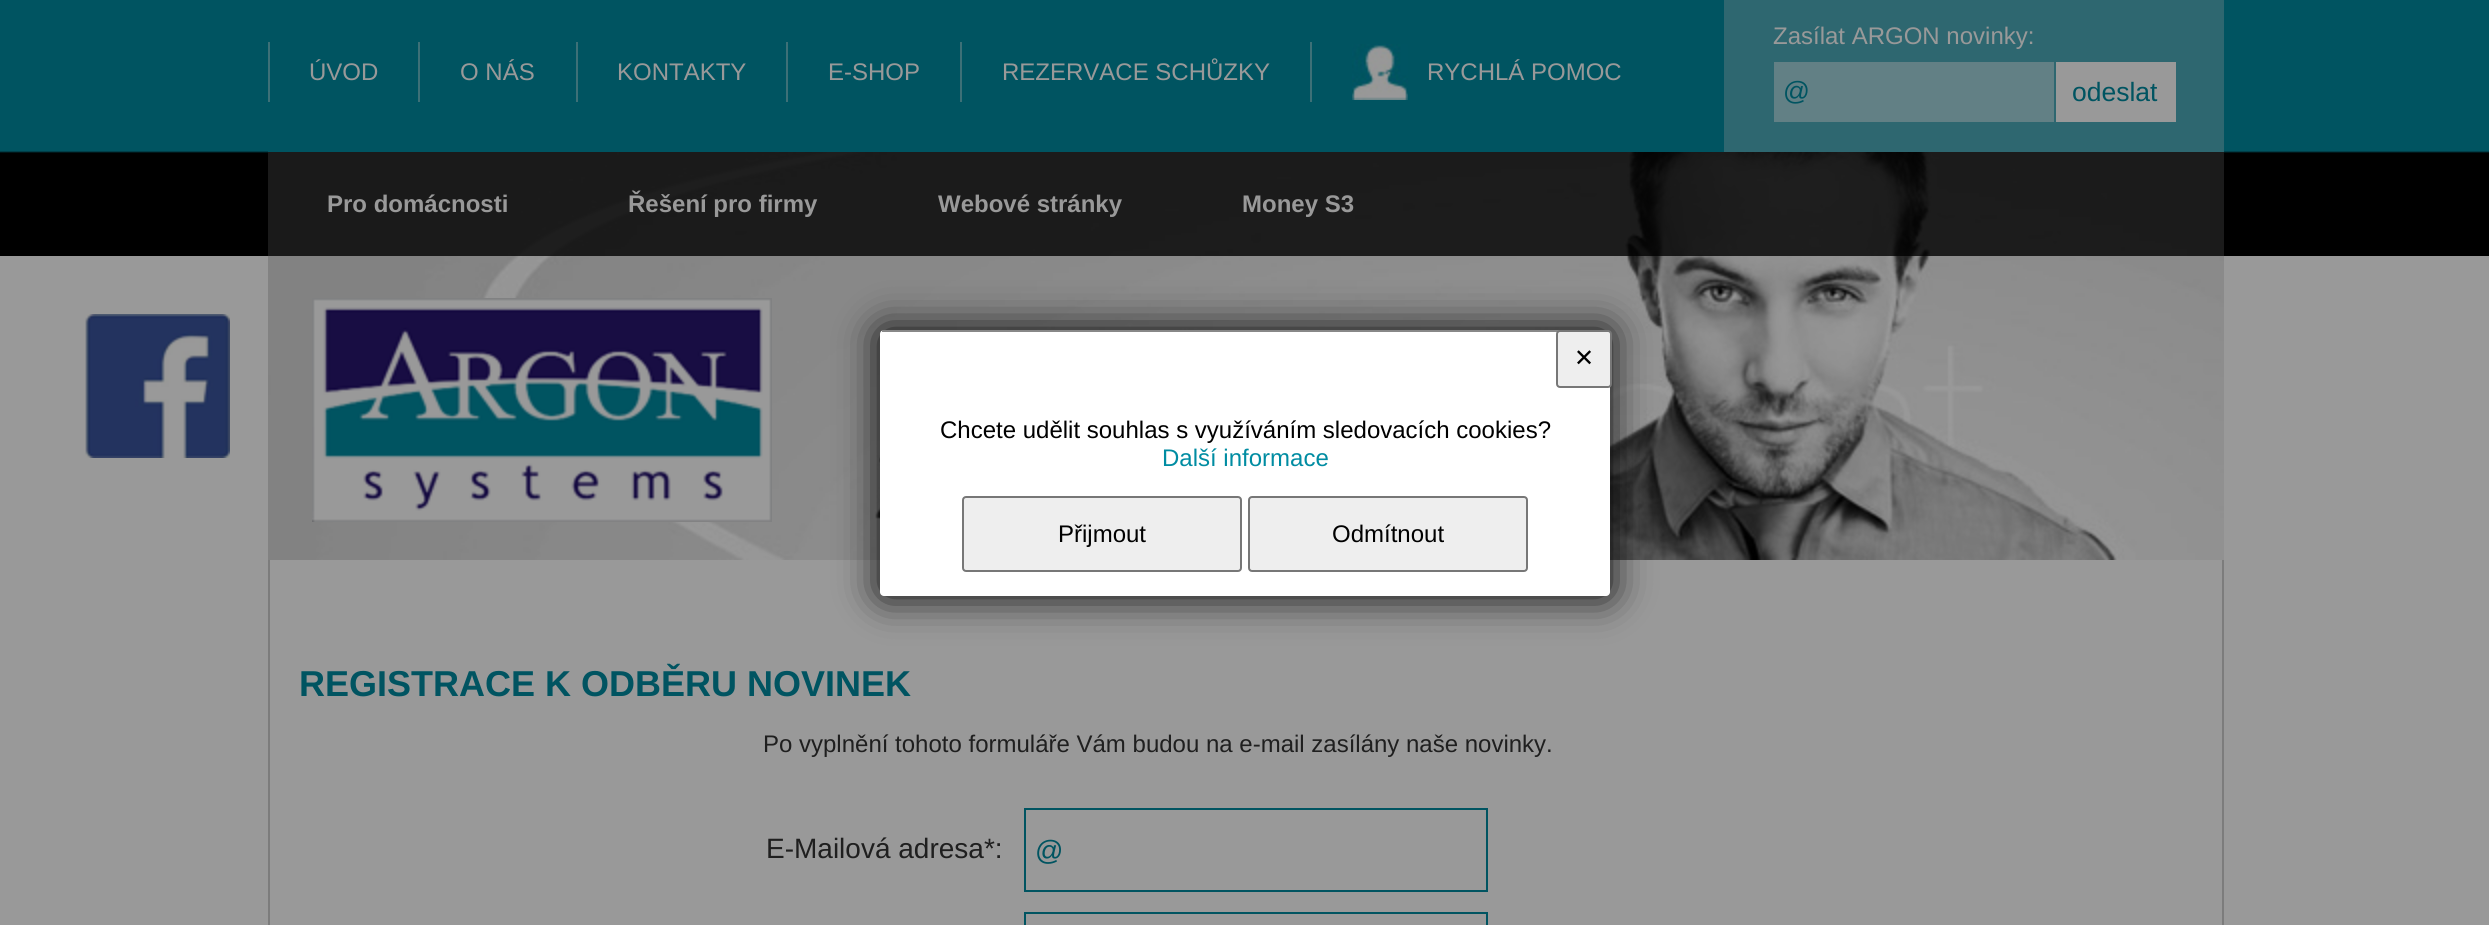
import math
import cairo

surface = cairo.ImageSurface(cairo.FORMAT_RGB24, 2489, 925)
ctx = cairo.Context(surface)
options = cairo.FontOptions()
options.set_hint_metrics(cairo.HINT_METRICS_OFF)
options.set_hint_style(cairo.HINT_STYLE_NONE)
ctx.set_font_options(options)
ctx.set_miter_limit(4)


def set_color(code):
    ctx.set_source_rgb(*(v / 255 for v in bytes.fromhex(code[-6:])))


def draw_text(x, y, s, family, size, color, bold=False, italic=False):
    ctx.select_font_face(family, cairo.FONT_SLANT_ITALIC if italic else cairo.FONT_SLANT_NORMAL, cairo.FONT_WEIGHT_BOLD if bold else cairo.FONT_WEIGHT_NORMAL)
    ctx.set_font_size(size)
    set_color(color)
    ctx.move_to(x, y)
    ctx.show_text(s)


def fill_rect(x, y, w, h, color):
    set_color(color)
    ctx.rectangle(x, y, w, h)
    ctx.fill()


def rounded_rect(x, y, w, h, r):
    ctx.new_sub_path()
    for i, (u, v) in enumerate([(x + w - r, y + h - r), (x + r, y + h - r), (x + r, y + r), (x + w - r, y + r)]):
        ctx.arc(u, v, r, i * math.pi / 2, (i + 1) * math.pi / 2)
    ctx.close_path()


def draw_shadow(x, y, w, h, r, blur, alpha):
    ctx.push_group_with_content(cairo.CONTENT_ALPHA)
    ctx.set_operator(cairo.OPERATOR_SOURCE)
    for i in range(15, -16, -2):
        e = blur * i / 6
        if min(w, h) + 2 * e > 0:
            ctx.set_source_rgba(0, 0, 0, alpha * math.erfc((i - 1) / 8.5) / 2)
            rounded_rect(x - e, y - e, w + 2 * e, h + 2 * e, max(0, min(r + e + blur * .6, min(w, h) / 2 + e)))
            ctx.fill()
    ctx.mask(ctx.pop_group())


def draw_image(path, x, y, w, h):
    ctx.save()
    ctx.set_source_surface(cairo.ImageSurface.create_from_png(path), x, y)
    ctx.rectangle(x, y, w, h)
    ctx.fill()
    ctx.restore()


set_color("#999999")
ctx.paint()
draw_image("assets/img1.png", 0, 0, 2489, 256)
draw_image("assets/img2.png", 85, 314, 145, 144)
fill_rect(268, 151, 1456, 1, "#005461")
fill_rect(268, 42, 2, 60, "#3d7077")
draw_text(309, 80, "ÚVOD", "Liberation Sans", 24, "#999999")
fill_rect(418, 42, 2, 60, "#3d7077")
draw_text(460, 80, "O NÁS", "Liberation Sans", 24, "#999999")
fill_rect(576, 42, 2, 60, "#3d7077")
draw_text(617, 80, "KONTAKTY", "Liberation Sans", 24, "#999999")
fill_rect(786, 42, 2, 60, "#3d7077")
draw_text(828, 80, "E-SHOP", "Liberation Sans", 24, "#999999")
fill_rect(960, 42, 2, 60, "#3d7077")
draw_text(1002, 80, "REZERVACE SCHŮZKY", "Liberation Sans", 24, "#999999")
draw_image("assets/img3.png", 1352, 44, 56, 56)
fill_rect(1310, 42, 2, 60, "#3d7077")
draw_text(1427, 80, "RYCHLÁ POMOC", "Liberation Sans", 24, "#999999")
fill_rect(1724, 0, 500, 152, "#2e6770")
draw_text(1773, 44, "Zasílat ARGON novinky:", "Liberation Sans", 24, "#999999")
fill_rect(1774, 62, 280, 60, "#628085")
draw_text(1783, 100, "@", "Liberation Sans", 26.5, "#005461")
fill_rect(2056, 62, 120, 60, "#999999")
draw_text(2072, 101, "odeslat", "Liberation Sans", 26.5, "#005461")
draw_image("assets/img4.png", 268, 152, 1956, 408)
ctx.set_source_rgba(0, 0, 0, 0.8)
ctx.rectangle(268, 152, 1956, 104)
ctx.fill()
draw_text(327, 212, "Pro domácnosti", "Liberation Sans", 24, "#999999", bold=True)
draw_text(628, 212, "Řešení pro firmy", "Liberation Sans", 24, "#999999", bold=True)
draw_text(938, 212, "Webové stránky", "Liberation Sans", 24, "#999999", bold=True)
draw_text(1242, 212, "Money S3", "Liberation Sans", 24, "#999999", bold=True)
draw_image("assets/img5.png", 312, 298, 460, 224)
fill_rect(2222, 560, 2, 365, "#7c7c7c")
fill_rect(268, 560, 2, 365, "#7c7c7c")
draw_text(299, 696, "REGISTRACE K ODBĚRU NOVINEK", "Liberation Sans", 36, "#005461", bold=True)
draw_text(763, 752, "Po vyplnění tohoto formuláře Vám budou na e-mail zasílány naše novinky.", "Liberation Sans", 24, "#1f1f1f")
draw_text(766, 858, "E-Mailová adresa*:", "Liberation Sans", 28, "#1f1f1f")
ctx.rectangle(1025, 809, 462, 82)
set_color("#005461")
ctx.stroke()
draw_text(1035, 860, "@", "Liberation Sans", 28, "#005461")
ctx.rectangle(1025, 913, 462, 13)
ctx.stroke()
set_color("#000000")
draw_shadow(880, 330, 730, 266, 4, 20, 1)
set_color("#ffffff")
rounded_rect(880, 330, 730, 266, 4)
ctx.fill()
fill_rect(882, 330, 678, 2, "#888888")
set_color("#eeeeee")
rounded_rect(1557, 331, 54, 56, 3)
ctx.fill_preserve()
set_color("#777777")
ctx.stroke()
draw_text(1574, 366, "✕", "DejaVu Sans", 24, "#000000")
draw_text(940, 438, "Chcete udělit souhlas s využíváním sledovacích cookies?", "Liberation Sans", 24, "#000000")
draw_text(1162, 466, "Další informace", "Liberation Sans", 24, "#008ca2")
set_color("#eeeeee")
rounded_rect(963, 497, 278, 74, 3)
ctx.fill_preserve()
set_color("#777777")
ctx.stroke()
draw_text(1058, 542, "Přijmout", "Liberation Sans", 24, "#000000")
set_color("#eeeeee")
rounded_rect(1249, 497, 278, 74, 3)
ctx.fill_preserve()
set_color("#777777")
ctx.stroke()
draw_text(1332, 542, "Odmítnout", "Liberation Sans", 24, "#000000")
surface.write_to_png("output.png")
